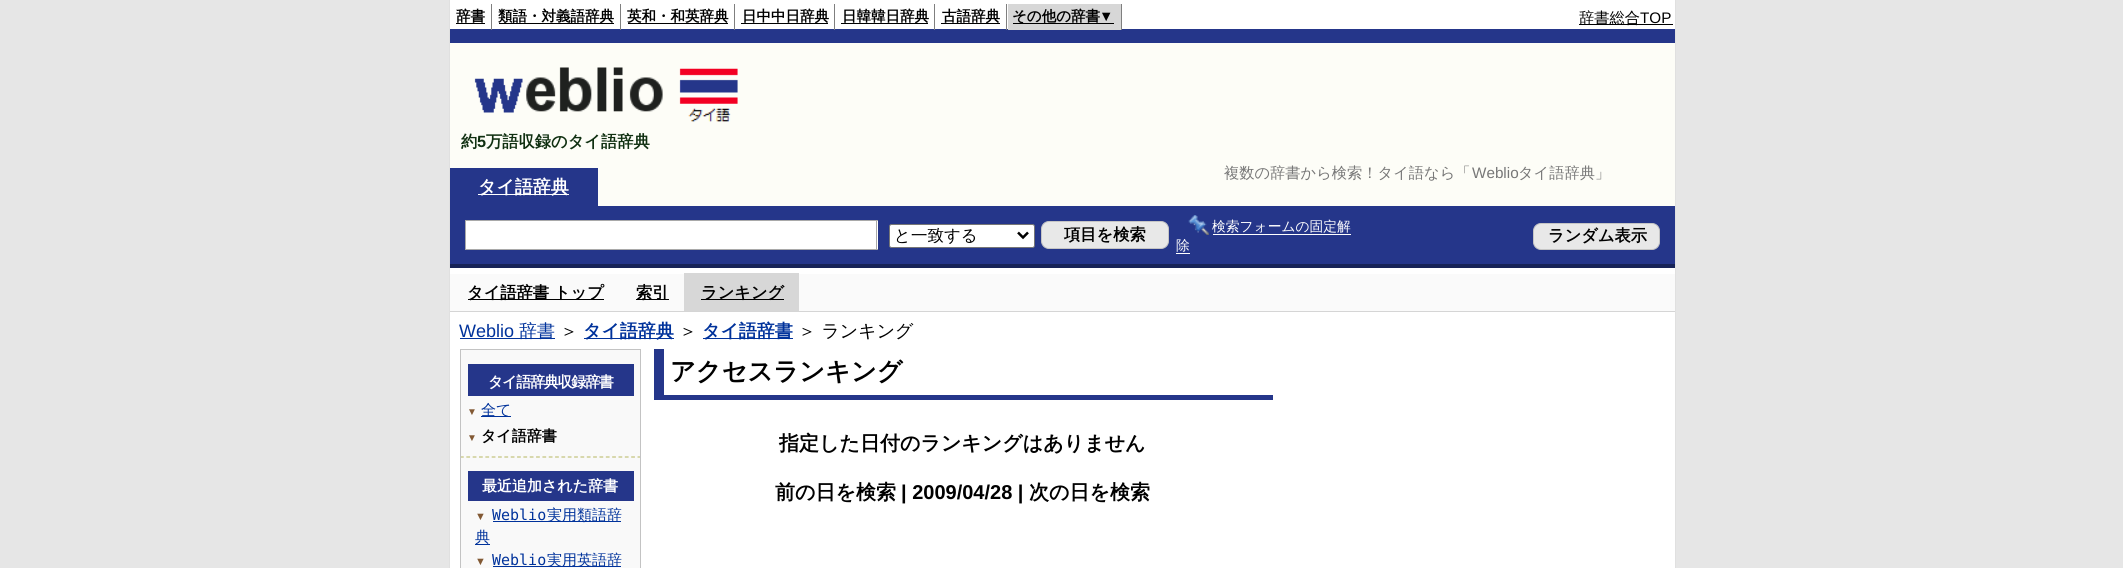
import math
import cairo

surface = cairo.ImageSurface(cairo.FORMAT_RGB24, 2123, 568)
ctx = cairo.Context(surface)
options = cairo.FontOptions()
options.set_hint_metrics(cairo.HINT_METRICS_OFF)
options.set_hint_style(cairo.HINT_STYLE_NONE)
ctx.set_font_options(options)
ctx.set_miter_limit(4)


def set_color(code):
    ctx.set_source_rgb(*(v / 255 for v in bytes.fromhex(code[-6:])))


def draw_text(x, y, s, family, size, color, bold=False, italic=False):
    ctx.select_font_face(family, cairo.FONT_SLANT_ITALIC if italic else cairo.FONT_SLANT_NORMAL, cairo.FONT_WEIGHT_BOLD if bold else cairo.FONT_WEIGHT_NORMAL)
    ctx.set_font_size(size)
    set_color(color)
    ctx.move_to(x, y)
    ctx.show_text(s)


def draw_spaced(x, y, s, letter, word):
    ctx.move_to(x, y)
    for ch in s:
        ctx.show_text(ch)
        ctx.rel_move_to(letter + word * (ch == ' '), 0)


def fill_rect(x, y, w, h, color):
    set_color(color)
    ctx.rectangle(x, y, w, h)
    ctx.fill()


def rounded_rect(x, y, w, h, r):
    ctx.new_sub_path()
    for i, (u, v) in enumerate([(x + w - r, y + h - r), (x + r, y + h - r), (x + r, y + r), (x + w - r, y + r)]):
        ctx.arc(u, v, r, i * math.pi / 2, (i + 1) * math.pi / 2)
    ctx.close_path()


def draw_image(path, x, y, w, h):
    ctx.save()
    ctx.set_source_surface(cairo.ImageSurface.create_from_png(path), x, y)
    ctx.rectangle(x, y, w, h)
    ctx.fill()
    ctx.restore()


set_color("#e6e6e6")
ctx.paint()
fill_rect(450, 0, 1225, 568, "#ffffff")
fill_rect(1675, 0, 1, 568, "#e0e0e0")
fill_rect(449, 0, 1, 568, "#e0e0e0")
fill_rect(450, 29, 1225, 14, "#25368a")
fill_rect(491, 4, 1, 26, "#7f7f7f")
draw_text(456, 21, "辞書", "WenQuanYi Zen Hei", 14.5, "#000000", bold=True)
fill_rect(456, 23, 29, 1, "#000000")
fill_rect(620, 4, 1, 26, "#7f7f7f")
fill_rect(499, 23, 115, 1, "#000000")
draw_text(498, 21, "類語・対義語辞典", "WenQuanYi Zen Hei", 14.5, "#000000", bold=True)
fill_rect(734, 4, 1, 26, "#7f7f7f")
fill_rect(628, 23, 100, 1, "#000000")
draw_text(627, 21, "英和・和英辞典", "WenQuanYi Zen Hei", 14.5, "#000000", bold=True)
fill_rect(834, 4, 1, 26, "#7f7f7f")
fill_rect(741, 23, 87, 1, "#000000")
draw_text(742, 21, "日中中日辞典", "WenQuanYi Zen Hei", 14.5, "#000000", bold=True)
fill_rect(934, 4, 1, 26, "#7f7f7f")
fill_rect(841, 23, 87, 1, "#000000")
draw_text(842, 21, "日韓韓日辞典", "WenQuanYi Zen Hei", 14.5, "#000000", bold=True)
fill_rect(1006, 4, 1, 26, "#7f7f7f")
fill_rect(941, 23, 59, 1, "#000000")
draw_text(942, 21, "古語辞典", "WenQuanYi Zen Hei", 14.5, "#000000", bold=True)
fill_rect(1008, 4, 113, 26, "#d7d7d7")
fill_rect(1121, 4, 1, 26, "#7f7f7f")
fill_rect(1013, 23, 101, 1, "#000000")
draw_text(1012, 21, "その他の辞書", "WenQuanYi Zen Hei", 14.5, "#000000", bold=True)
draw_text(1099, 21, "▼", "Liberation Sans", 14.5, "#000000", bold=True)
fill_rect(1579, 24, 94, 1, "#000000")
draw_text(1579, 23, "辞書総合", "WenQuanYi Zen Hei Medium", 15.25, "#000000")
draw_text(1640, 23, "TOP", "Liberation Sans", 15.25, "#000000")
fill_rect(450, 43, 1225, 125, "#fdfdf7")
draw_image("assets/img1.png", 474, 67, 264, 55)
draw_text(461, 147, "約", "WenQuanYi Zen Hei", 16.25, "#103011", bold=True)
draw_text(477, 147, "5", "Liberation Sans", 16.25, "#103011", bold=True)
draw_text(486, 147, "万語収録のタイ語辞典", "WenQuanYi Zen Hei", 16.25, "#103011", bold=True)
fill_rect(598, 168, 1077, 38, "#fdfdf7")
draw_text(1224, 178, "複数の辞書から検索！タイ語なら「", "WenQuanYi Zen Hei Medium", 15.25, "#777777")
draw_text(1472, 178, "Weblio", "Liberation Sans", 15.25, "#777777")
draw_text(1518, 178, "タイ語辞典」", "WenQuanYi Zen Hei Medium", 15.25, "#777777")
fill_rect(450, 168, 148, 38, "#25368a")
fill_rect(478, 194, 91, 1, "#ffffff")
draw_text(478, 193, "タイ語辞典", "WenQuanYi Zen Hei", 18, "#ffffff", bold=True)
fill_rect(450, 206, 1225, 58, "#25368a")
fill_rect(450, 264, 1225, 4, "#172357")
fill_rect(466, 221, 412, 28, "#ffffff")
fill_rect(465, 220, 413, 1, "#a9a9a9")
fill_rect(876, 220, 1, 30, "#a9a9a9")
fill_rect(465, 249, 413, 1, "#a9a9a9")
fill_rect(465, 220, 1, 30, "#a9a9a9")
set_color("#ffffff")
rounded_rect(889.5, 224.5, 145, 23, 2)
ctx.fill_preserve()
set_color("#767676")
ctx.set_line_width(1)
ctx.stroke()
ctx.new_path()
ctx.move_to(1018, 232.5)
ctx.line_to(1023, 237.5)
ctx.line_to(1028, 232.5)
set_color("#000000")
ctx.set_line_width(2.5)
ctx.stroke()
draw_text(894, 241, "と一致する", "WenQuanYi Zen Hei Medium", 16.5, "#000000")
set_color("#e8e8e8")
rounded_rect(1041.5, 221.5, 127, 27, 7.5)
ctx.fill_preserve()
set_color("#c5c5c5")
ctx.set_line_width(1)
ctx.stroke()
draw_text(1064, 240, "項目を検索", "WenQuanYi Zen Hei", 16.25, "#000000", bold=True)
draw_image("assets/img2.png", 1188, 215, 21, 20)
draw_text(1212, 231, "検索フォームの固定解", "WenQuanYi Zen Hei Medium", 13.75, "#ffffff")
fill_rect(1213, 234, 138, 1, "#ffffff")
draw_text(1176, 250, "除", "WenQuanYi Zen Hei Medium", 13.75, "#ffffff")
fill_rect(1176, 253, 14, 1, "#ffffff")
set_color("#e8e8e8")
rounded_rect(1533.5, 223.5, 126, 26, 7.5)
ctx.fill_preserve()
set_color("#c5c5c5")
ctx.stroke()
draw_text(1548, 241, "ランダム表示", "WenQuanYi Zen Hei", 16.25, "#000000", bold=True)
fill_rect(450, 274, 1225, 37, "#fafafa")
fill_rect(450, 311, 1225, 1, "#d5d5d5")
fill_rect(468, 299, 136, 1, "#000000")
draw_text(467, 298, "タイ語辞書 トップ", "WenQuanYi Zen Hei", 16.25, "#000000", bold=True)
fill_rect(636, 299, 33, 1, "#000000")
draw_text(636, 298, "索引", "WenQuanYi Zen Hei", 16.25, "#000000", bold=True)
fill_rect(684, 273, 115, 38, "#d7d7d7")
fill_rect(701, 299, 83, 1, "#000000")
draw_text(701, 298, "ランキング", "WenQuanYi Zen Hei", 16.25, "#000000", bold=True)
draw_text(459, 337, "Weblio", "Liberation Sans", 18, "#00329b")
fill_rect(460, 338, 95, 1, "#00329b")
draw_text(519, 337, "辞書", "WenQuanYi Zen Hei Medium", 18, "#00329b")
draw_text(560, 337, "＞", "WenQuanYi Zen Hei Medium", 18, "#000000")
fill_rect(584, 338, 90, 1, "#00329b")
draw_text(583, 337, "タイ語辞典", "WenQuanYi Zen Hei", 18, "#00329b", bold=True)
draw_text(679, 337, "＞", "WenQuanYi Zen Hei Medium", 18, "#000000")
fill_rect(703, 338, 90, 1, "#00329b")
draw_text(702, 337, "タイ語辞書", "WenQuanYi Zen Hei", 18, "#00329b", bold=True)
draw_text(798, 337, "＞ ランキング", "WenQuanYi Zen Hei Medium", 18, "#000000")
fill_rect(461, 350, 179, 218, "#f9f9f9")
fill_rect(460, 349, 181, 1, "#c3c3c3")
fill_rect(640, 349, 1, 107, "#c3c3c3")
fill_rect(460, 349, 1, 107, "#c3c3c3")
fill_rect(468, 364, 166, 32, "#25368a")
ctx.select_font_face("WenQuanYi Zen Hei", cairo.FONT_SLANT_NORMAL, cairo.FONT_WEIGHT_BOLD)
ctx.set_font_size(15)
set_color("#ffffff")
draw_spaced(488, 387, "タイ語辞典収録辞書", -1.25, 0)
draw_text(467, 415, "▼", "Liberation Sans", 10, "#825934", bold=True)
fill_rect(481, 416, 30, 1, "#00329b")
draw_text(481, 415, "全て", "WenQuanYi Zen Hei Medium", 15, "#00329b")
draw_text(467, 441, "▼", "Liberation Sans", 10, "#825934", bold=True)
draw_text(481, 441, "タイ語辞書", "WenQuanYi Zen Hei", 15, "#000000", bold=True)
ctx.new_path()
ctx.move_to(460, 457)
ctx.line_to(641, 457)
set_color("#c2c27a")
ctx.set_line_width(1.2)
ctx.set_dash([3.75, 2.59])
ctx.stroke()
fill_rect(640, 456, 1, 112, "#c3c3c3")
fill_rect(460, 456, 1, 112, "#c3c3c3")
fill_rect(468, 471, 166, 30, "#25368a")
draw_text(482, 491, "最近追加された辞書", "WenQuanYi Zen Hei", 15, "#ffffff", bold=True)
draw_text(475, 520, "▼", "Liberation Sans", 11, "#825934")
draw_text(492, 520, "Weblio", "DejaVu Sans Mono", 15, "#00329b")
fill_rect(493, 521, 128, 1, "#00329b")
draw_text(547, 520, "実用類語辞", "WenQuanYi Zen Hei Medium", 15, "#00329b")
fill_rect(475, 544, 15, 1, "#00329b")
draw_text(475, 542, "典", "WenQuanYi Zen Hei Medium", 15, "#00329b")
draw_text(475, 565, "▼", "Liberation Sans", 11, "#825934")
draw_text(492, 565, "Weblio", "DejaVu Sans Mono", 15, "#00329b")
fill_rect(493, 566, 128, 1, "#00329b")
draw_text(547, 565, "実用英語辞", "WenQuanYi Zen Hei Medium", 15, "#00329b")
fill_rect(654, 395, 619, 5, "#25368a")
fill_rect(654, 349, 10, 46, "#25368a")
draw_text(670, 380, "アクセスランキング", "WenQuanYi Zen Hei", 25.25, "#000000", bold=True)
draw_text(779, 450, "指定した日付のランキングはありません", "WenQuanYi Zen Hei", 20, "#000000", bold=True)
draw_text(775, 499, "前の日を検索", "WenQuanYi Zen Hei", 20, "#000000", bold=True)
draw_text(901, 499, "| 2009/04/28 |", "Liberation Sans", 20, "#000000", bold=True)
draw_text(1029, 499, "次の日を検索", "WenQuanYi Zen Hei", 20, "#000000", bold=True)
surface.write_to_png("output.png")
